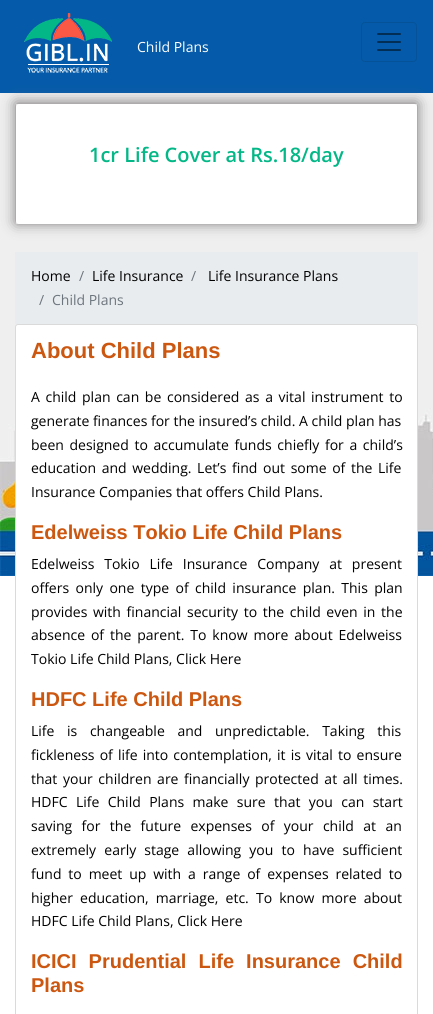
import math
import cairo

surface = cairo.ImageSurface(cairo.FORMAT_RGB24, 433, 1014)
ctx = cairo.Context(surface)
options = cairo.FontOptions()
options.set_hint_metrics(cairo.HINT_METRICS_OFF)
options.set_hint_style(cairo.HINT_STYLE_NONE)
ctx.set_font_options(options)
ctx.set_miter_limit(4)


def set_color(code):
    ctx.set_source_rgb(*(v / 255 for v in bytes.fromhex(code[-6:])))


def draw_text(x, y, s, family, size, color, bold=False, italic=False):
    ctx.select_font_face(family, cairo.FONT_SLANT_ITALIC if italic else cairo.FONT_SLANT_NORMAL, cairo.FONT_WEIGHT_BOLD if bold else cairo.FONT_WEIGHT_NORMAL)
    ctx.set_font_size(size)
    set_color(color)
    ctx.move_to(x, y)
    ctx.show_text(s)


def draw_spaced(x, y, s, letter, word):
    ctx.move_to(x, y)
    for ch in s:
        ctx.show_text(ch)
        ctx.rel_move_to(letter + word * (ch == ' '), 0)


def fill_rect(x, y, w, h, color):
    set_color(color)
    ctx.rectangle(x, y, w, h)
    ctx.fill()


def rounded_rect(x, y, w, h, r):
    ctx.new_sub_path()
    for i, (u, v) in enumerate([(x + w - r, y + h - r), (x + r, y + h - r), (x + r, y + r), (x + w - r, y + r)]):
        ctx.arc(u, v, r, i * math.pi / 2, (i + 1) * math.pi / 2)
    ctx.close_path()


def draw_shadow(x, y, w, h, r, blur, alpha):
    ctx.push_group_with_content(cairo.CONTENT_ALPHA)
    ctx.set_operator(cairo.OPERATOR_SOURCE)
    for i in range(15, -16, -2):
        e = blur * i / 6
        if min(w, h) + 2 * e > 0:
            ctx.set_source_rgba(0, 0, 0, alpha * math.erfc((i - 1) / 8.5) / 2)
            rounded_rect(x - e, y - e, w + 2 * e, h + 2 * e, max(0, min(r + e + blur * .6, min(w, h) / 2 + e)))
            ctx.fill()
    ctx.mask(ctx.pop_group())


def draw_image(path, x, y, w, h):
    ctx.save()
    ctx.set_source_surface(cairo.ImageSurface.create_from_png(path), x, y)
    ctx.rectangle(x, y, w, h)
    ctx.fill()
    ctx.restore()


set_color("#ffffff")
ctx.paint()
draw_image("assets/img1.png", 0, 93, 433, 483)
fill_rect(0, 0, 433, 93, "#055ba9")
draw_image("assets/img2.png", 24, 13, 88, 60)
draw_text(137, 52, "Child Plans", "Open Sans", 14, "#ffffff")
rounded_rect(361.5, 22.5, 55, 39, 3.5)
set_color("#055298")
ctx.set_line_width(1)
ctx.stroke()
draw_image("assets/img3.png", 377, 33, 24, 18)
fill_rect(15, 103, 403, 122, "#f2f4f2")
set_color("#ffffff")
rounded_rect(15, 103, 403, 122, 4)
ctx.fill()
rounded_rect(15.5, 103.5, 402, 121, 3.5)
ctx.set_source_rgba(0, 0, 0, 0.12)
ctx.stroke()
ctx.save()
ctx.set_fill_rule(cairo.FILL_RULE_EVEN_ODD)
ctx.new_path()
ctx.move_to(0, 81)
ctx.line_to(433, 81)
ctx.line_to(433, 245)
ctx.line_to(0, 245)
ctx.close_path()
ctx.move_to(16, 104)
ctx.line_to(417, 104)
ctx.line_to(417, 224)
ctx.line_to(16, 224)
ctx.close_path()
ctx.clip()
set_color("#797676")
draw_shadow(16, 103, 401, 120, 0, 7, 1)
ctx.restore()
draw_text(89, 162, "1cr Life Cover at Rs.18/day", "Open Sans SemiBold", 20, "#04b786")
fill_rect(15, 252, 403, 72, "#e9ecef")
draw_text(31, 281, "Home", "Open Sans", 14, "#000000")
draw_text(79, 281, "/", "Open Sans", 14, "#6c757d")
draw_text(92, 281, "Life Insurance", "Open Sans", 14, "#000000")
draw_text(191, 281, "/", "Open Sans", 14, "#6c757d")
draw_text(208, 281, "Life Insurance Plans", "Open Sans", 14, "#000000")
draw_text(39, 305, "/", "Open Sans", 14, "#6c757d")
draw_text(52, 305, "Child Plans", "Open Sans", 14, "#6c757d")
set_color("#ffffff")
rounded_rect(15.5, 324.5, 402, 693, 2.5)
ctx.fill_preserve()
set_color("#dadada")
ctx.stroke()
draw_text(31, 358, "About Child Plans", "Liberation Sans", 22, "#cc5710", bold=True)
ctx.select_font_face("Open Sans")
ctx.set_font_size(14)
set_color("#000000")
draw_spaced(31, 402, "A child plan can be considered as a vital instrument to", 0, 2)
draw_text(31, 426, "generate finances for the insured’s child. A child plan has", "Open Sans", 14, "#000000")
draw_spaced(31, 450, "been designed to accumulate funds chiefly for a child’s", 0, 2)
draw_spaced(31, 473, "education and wedding. Let’s find out some of the Life", 0, 2)
draw_text(31, 497, "Insurance Companies that offers Child Plans.", "Open Sans", 14, "#000000")
draw_text(31, 539, "Edelweiss Tokio Life Child Plans", "Liberation Sans", 20, "#cc5710", bold=True)
ctx.select_font_face("Open Sans")
ctx.set_font_size(14)
set_color("#000000")
draw_spaced(31, 569, "Edelweiss Tokio Life Insurance Company at present", 0, 6.25)
draw_spaced(31, 593, "offers only one type of child insurance plan. This plan", 0, 2.75)
draw_spaced(31, 617, "provides with financial security to the child even in the", 0, 2)
draw_spaced(31, 640, "absence of the parent. To know more about Edelweiss", 0, 2.25)
draw_text(31, 664, "Tokio Life Child Plans, Click Here", "Open Sans", 14, "#000000")
draw_text(31, 706, "HDFC Life Child Plans", "Liberation Sans", 20, "#cc5710", bold=True)
ctx.select_font_face("Open Sans")
ctx.set_font_size(14)
set_color("#000000")
draw_spaced(31, 736, "Life is changeable and unpredictable. Taking this", 0, 9)
draw_spaced(31, 760, "fickleness of life into contemplation, it is vital to ensure", 0, 1.5)
draw_spaced(31, 784, "that your children are financially protected at all times.", 0, 2)
draw_spaced(31, 807, "HDFC Life Child Plans make sure that you can start", 0, 4.75)
draw_spaced(31, 831, "saving for the future expenses of your child at an", 0, 5.75)
draw_spaced(31, 855, "extremely early stage allowing you to have sufficient", 0, 4.5)
draw_spaced(31, 879, "fund to meet up with a range of expenses related to", 0, 3.25)
draw_spaced(31, 903, "higher education, marriage, etc. To know more about", 0, 3.5)
draw_text(31, 926, "HDFC Life Child Plans, Click Here", "Open Sans", 14, "#000000")
ctx.select_font_face("Liberation Sans", cairo.FONT_SLANT_NORMAL, cairo.FONT_WEIGHT_BOLD)
ctx.set_font_size(20)
set_color("#cc5710")
draw_spaced(31, 968, "ICICI Prudential Life Insurance Child", 0, 6.5)
draw_text(31, 992, "Plans", "Liberation Sans", 20, "#cc5710", bold=True)
surface.write_to_png("output.png")
